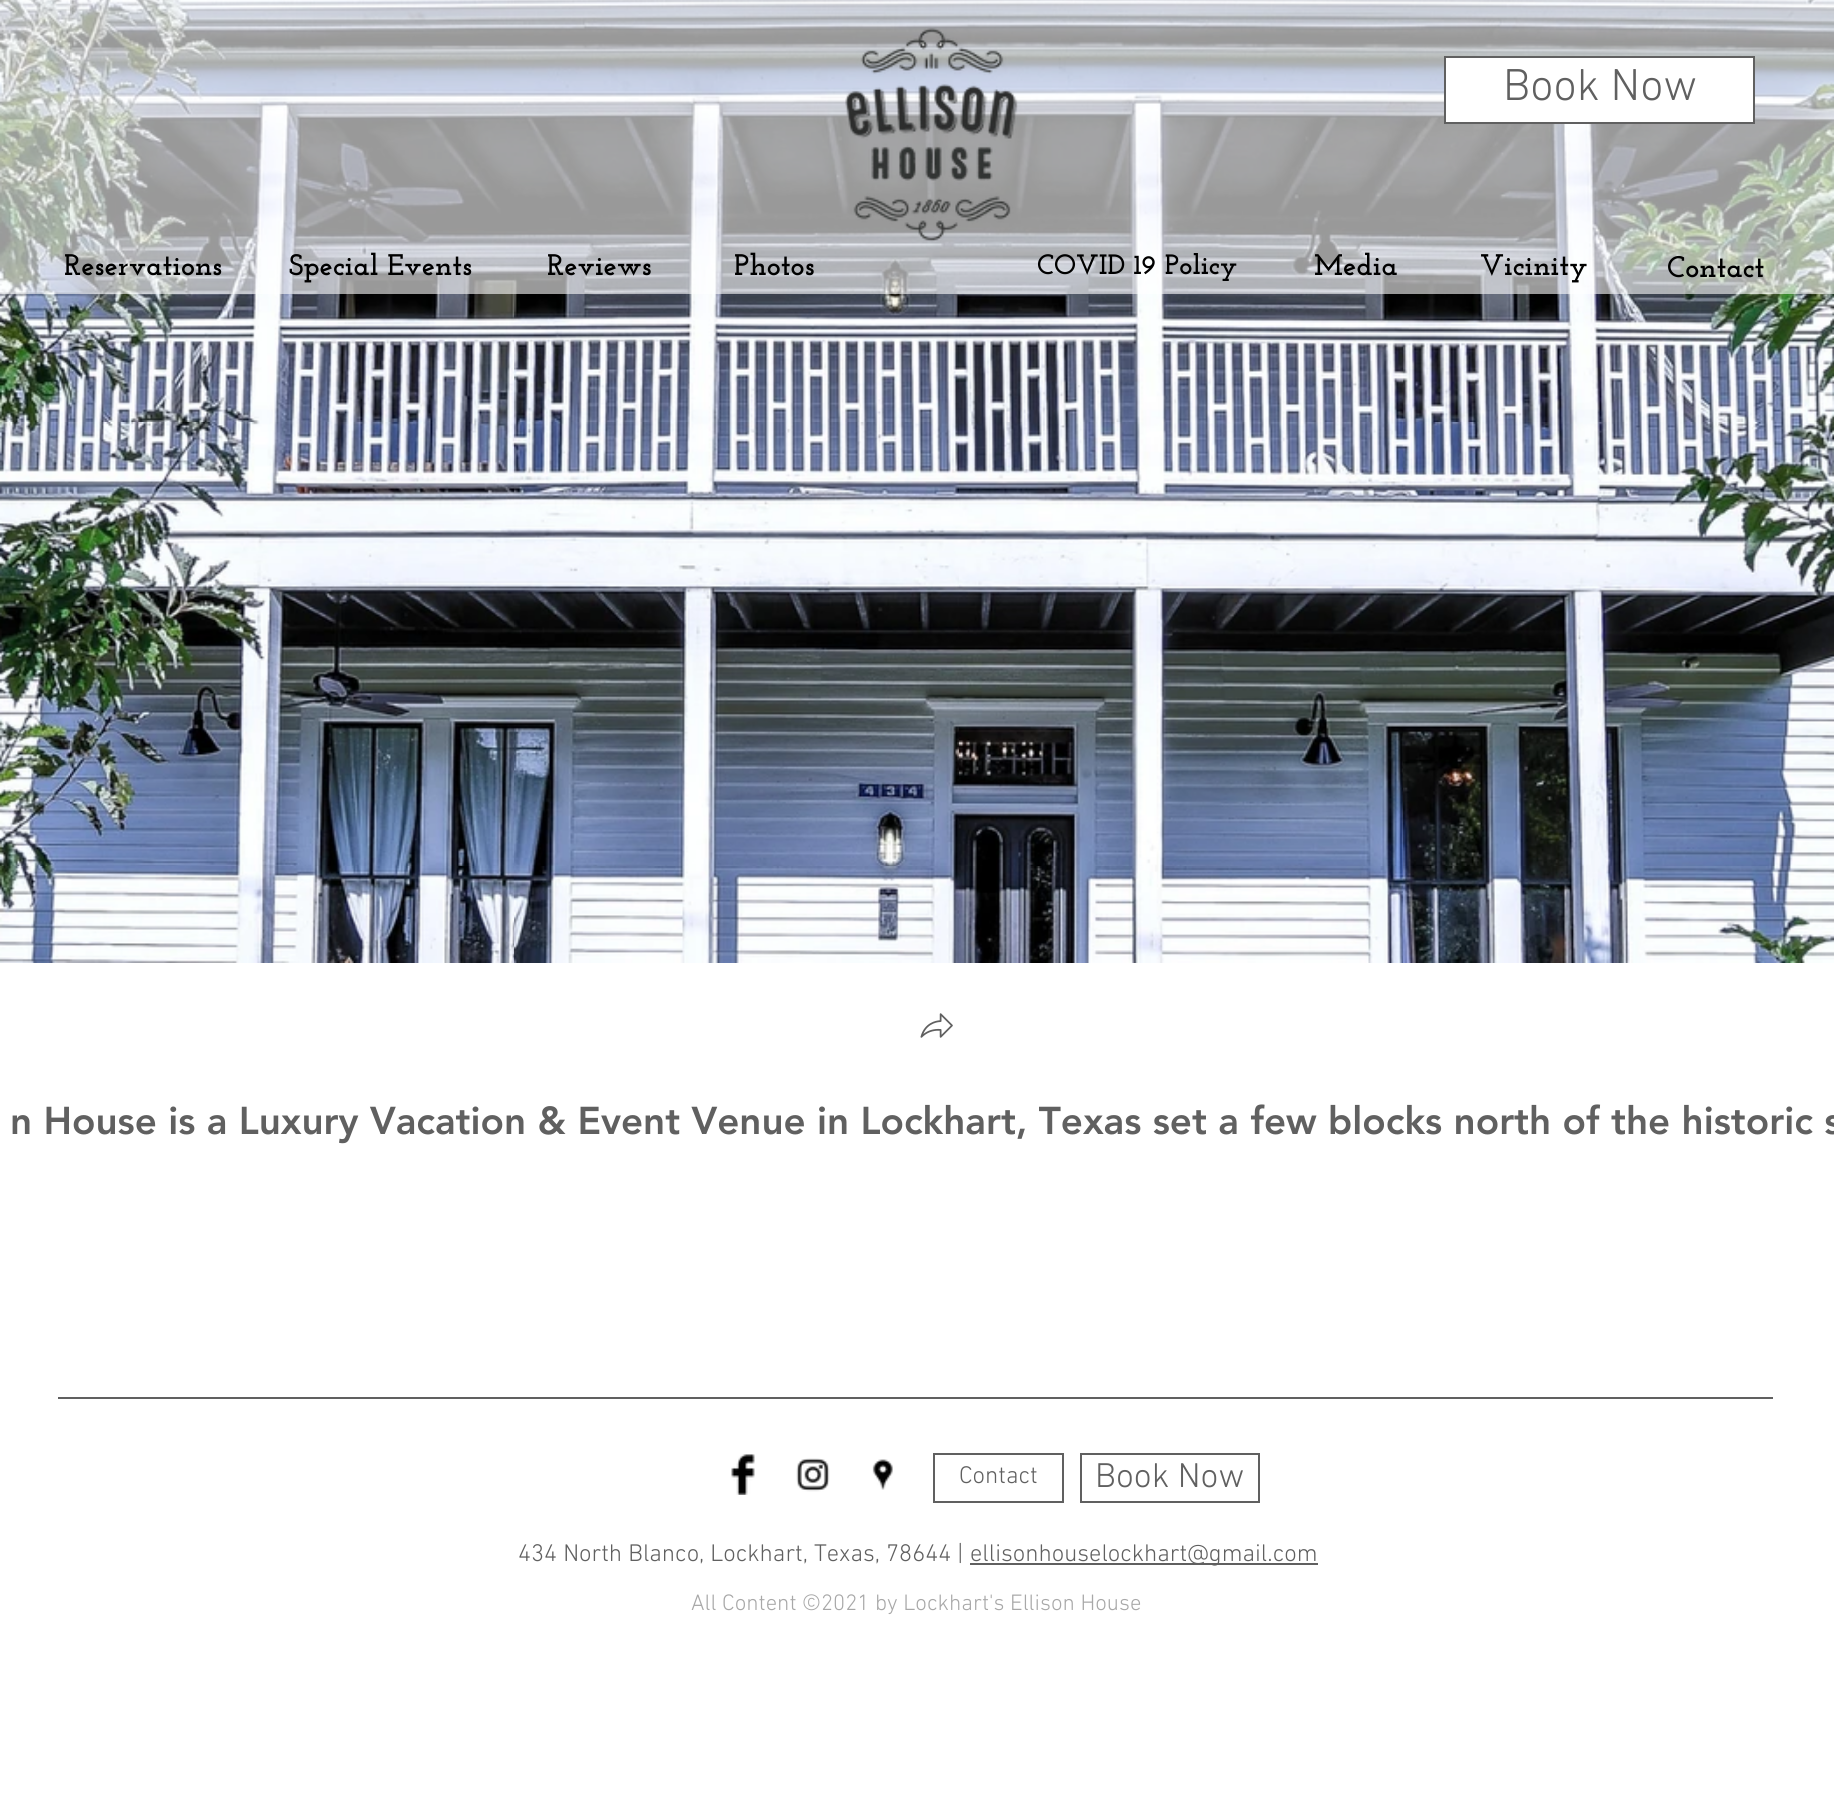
import math
import cairo

surface = cairo.ImageSurface(cairo.FORMAT_RGB24, 1834, 1810)
ctx = cairo.Context(surface)
options = cairo.FontOptions()
options.set_hint_metrics(cairo.HINT_METRICS_OFF)
options.set_hint_style(cairo.HINT_STYLE_NONE)
ctx.set_font_options(options)
ctx.set_miter_limit(4)


def set_color(code):
    ctx.set_source_rgb(*(v / 255 for v in bytes.fromhex(code[-6:])))


def draw_text(x, y, s, family, size, color, bold=False, italic=False):
    ctx.select_font_face(family, cairo.FONT_SLANT_ITALIC if italic else cairo.FONT_SLANT_NORMAL, cairo.FONT_WEIGHT_BOLD if bold else cairo.FONT_WEIGHT_NORMAL)
    ctx.set_font_size(size)
    set_color(color)
    ctx.move_to(x, y)
    ctx.show_text(s)


def fill_rect(x, y, w, h, color):
    set_color(color)
    ctx.rectangle(x, y, w, h)
    ctx.fill()


def draw_image(path, x, y, w, h):
    ctx.save()
    ctx.set_source_surface(cairo.ImageSurface.create_from_png(path), x, y)
    ctx.rectangle(x, y, w, h)
    ctx.fill()
    ctx.restore()


set_color("#ffffff")
ctx.paint()
draw_image("assets/img2.png", 0, 0, 1834, 963)
ctx.set_source_rgba(1, 1, 1, 0.6)
ctx.rectangle(0, 0, 1834, 294)
ctx.fill()
draw_image("assets/img1.png", 845, 28, 173, 214)
set_color("#ffffff")
ctx.rectangle(1445, 57, 309, 66)
ctx.fill_preserve()
set_color("#606060")
ctx.stroke()
draw_text(1503, 100, "Book Now", "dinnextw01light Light", 45.5, "#606060")
draw_text(64, 275, "Reservations", "Josefin Slab", 29.75, "#000000", bold=True)
draw_text(289, 275, "Special Events", "Josefin Slab", 29.75, "#000000", bold=True)
draw_text(547, 275, "Reviews", "Josefin Slab", 29.75, "#000000", bold=True)
draw_text(734, 275, "Photos", "Josefin Slab", 29.75, "#000000", bold=True)
draw_text(1037, 274, "COVID 19 Policy", "Josefin Slab", 28, "#000000", bold=True)
draw_text(1314, 275, "Media", "Josefin Slab", 29.75, "#000000", bold=True)
draw_text(1480, 275, "Vicinity", "Josefin Slab", 29.75, "#000000", bold=True)
draw_text(1667, 277, "Contact", "Josefin Slab", 29.75, "#000000", bold=True)
draw_image("assets/img3.png", 920, 1013, 33, 25)
draw_text(10, 1134, "n House is a Luxury Vacation & Event Venue in Lockhart, Texas set a few blocks north of the historic s", "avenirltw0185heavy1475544 Black", 38.5, "#606060")
fill_rect(58, 1397, 1715, 2, "#606060")
draw_image("assets/img4.png", 731, 1454, 24, 41)
draw_image("assets/img5.png", 796, 1458, 34, 34)
draw_image("assets/img6.png", 872, 1459, 21, 31)
ctx.rectangle(934, 1454, 129, 48)
ctx.stroke()
draw_text(959, 1483, "Contact", "dinnextw01light Light", 24.5, "#606060")
ctx.rectangle(1081, 1454, 178, 48)
ctx.stroke()
draw_text(1095, 1487, "Book Now", "dinnextw01light Light", 35, "#606060")
draw_text(518, 1561, "434 North Blanco, Lockhart, Texas, 78644 |", "dinnextw01light Light", 24.5, "#606060")
fill_rect(970, 1563, 348, 2, "#606060")
draw_text(970, 1561, "ellisonhouselockhart@gmail.com", "dinnextw01light Light", 24.5, "#606060")
draw_text(691, 1610, "All Content ©2021 by Lockhart's Ellison House", "dinnextw01light Light", 22.75, "#a8a8a8")
surface.write_to_png("output.png")
